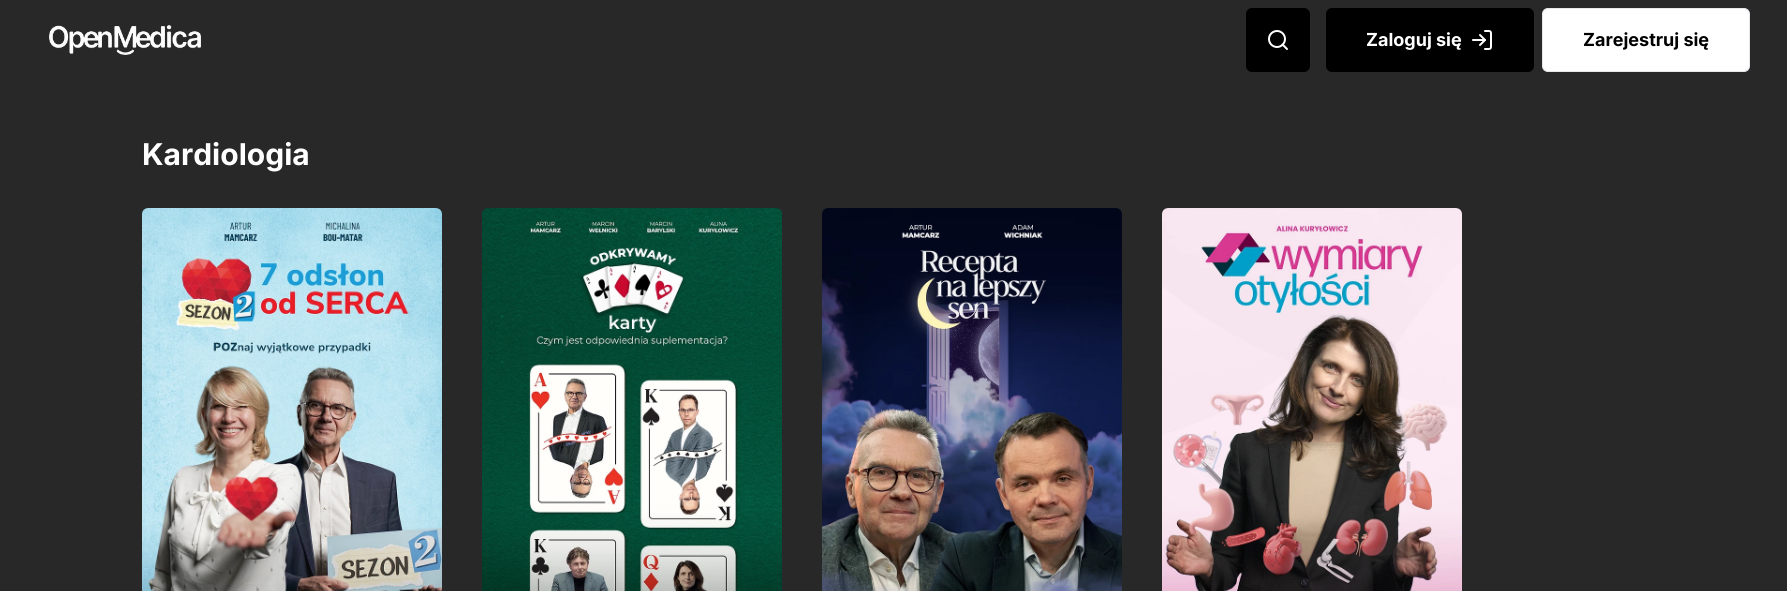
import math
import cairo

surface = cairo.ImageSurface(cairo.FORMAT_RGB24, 1787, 591)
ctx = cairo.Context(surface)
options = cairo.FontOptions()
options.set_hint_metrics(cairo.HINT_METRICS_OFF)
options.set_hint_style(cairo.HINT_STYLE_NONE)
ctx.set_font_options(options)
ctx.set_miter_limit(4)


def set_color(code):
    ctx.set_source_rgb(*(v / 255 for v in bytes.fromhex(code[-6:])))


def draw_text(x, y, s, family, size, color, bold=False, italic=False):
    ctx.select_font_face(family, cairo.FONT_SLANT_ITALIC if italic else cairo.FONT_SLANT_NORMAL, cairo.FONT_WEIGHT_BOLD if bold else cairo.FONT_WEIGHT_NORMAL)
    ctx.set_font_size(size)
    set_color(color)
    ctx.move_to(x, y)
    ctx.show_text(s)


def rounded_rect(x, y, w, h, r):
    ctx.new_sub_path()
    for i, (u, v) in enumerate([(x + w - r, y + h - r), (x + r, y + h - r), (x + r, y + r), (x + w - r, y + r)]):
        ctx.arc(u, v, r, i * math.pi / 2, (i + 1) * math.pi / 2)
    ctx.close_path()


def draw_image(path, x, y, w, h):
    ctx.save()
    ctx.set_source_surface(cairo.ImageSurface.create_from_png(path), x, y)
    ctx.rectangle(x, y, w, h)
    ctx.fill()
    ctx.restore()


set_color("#282828")
ctx.paint()
draw_image("assets/img1.png", 49, 25, 152, 30)
set_color("#000000")
rounded_rect(1246, 8, 64, 64, 6)
ctx.fill()
ctx.arc(1277, 39, 8, 0, 2 * math.pi)
set_color("#ffffff")
ctx.stroke()
ctx.new_path()
ctx.move_to(1287, 49)
ctx.line_to(1282.5, 44.5)
ctx.set_line_cap(cairo.LINE_CAP_ROUND)
ctx.set_line_join(cairo.LINE_JOIN_ROUND)
ctx.stroke()
set_color("#000000")
rounded_rect(1326, 8, 208, 64, 6)
ctx.fill()
draw_text(1366, 46, "Zaloguj się", "Inter", 18, "#ffffff", bold=True)
draw_image("assets/img2.png", 1472, 30, 20, 20)
rounded_rect(1542.5, 8.5, 207, 63, 5.5)
ctx.fill_preserve()
set_color("#e5e7eb")
ctx.set_line_width(1)
ctx.set_line_cap(cairo.LINE_CAP_BUTT)
ctx.set_line_join(cairo.LINE_JOIN_MITER)
ctx.stroke()
draw_text(1583, 46, "Zarejestruj się", "Inter", 18, "#000000", bold=True)
draw_text(142, 165, "Kardiologia", "Inter", 30, "#ffffff", bold=True)
draw_image("assets/img3.png", 142, 208, 300, 383)
draw_image("assets/img4.png", 482, 208, 300, 383)
draw_image("assets/img5.png", 822, 208, 300, 383)
draw_image("assets/img6.png", 1162, 208, 300, 383)
surface.write_to_png("output.png")
